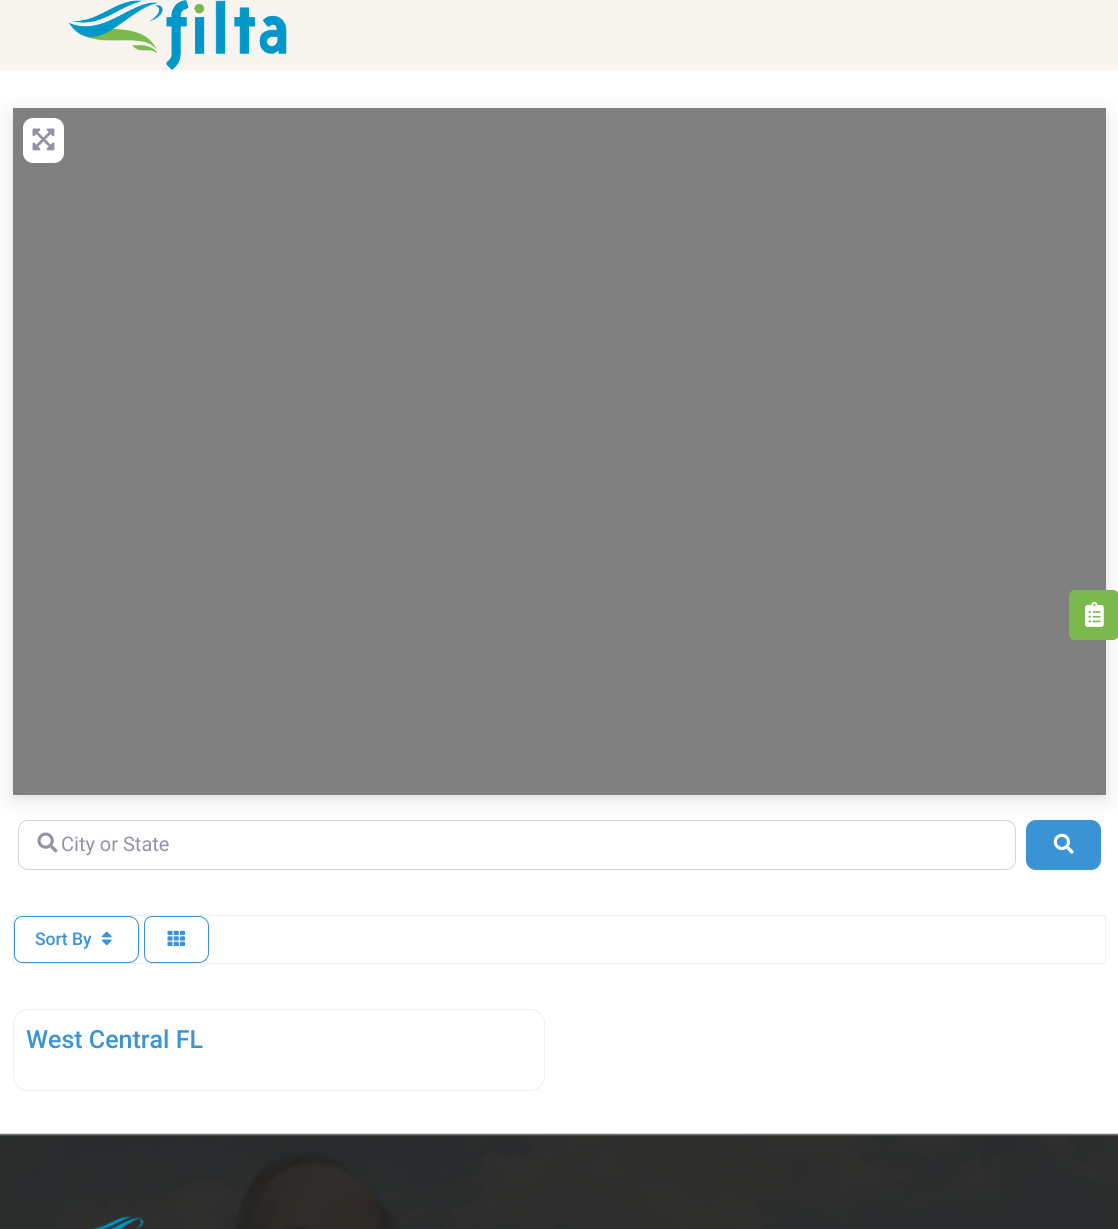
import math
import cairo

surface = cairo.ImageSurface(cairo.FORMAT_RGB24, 1118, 1229)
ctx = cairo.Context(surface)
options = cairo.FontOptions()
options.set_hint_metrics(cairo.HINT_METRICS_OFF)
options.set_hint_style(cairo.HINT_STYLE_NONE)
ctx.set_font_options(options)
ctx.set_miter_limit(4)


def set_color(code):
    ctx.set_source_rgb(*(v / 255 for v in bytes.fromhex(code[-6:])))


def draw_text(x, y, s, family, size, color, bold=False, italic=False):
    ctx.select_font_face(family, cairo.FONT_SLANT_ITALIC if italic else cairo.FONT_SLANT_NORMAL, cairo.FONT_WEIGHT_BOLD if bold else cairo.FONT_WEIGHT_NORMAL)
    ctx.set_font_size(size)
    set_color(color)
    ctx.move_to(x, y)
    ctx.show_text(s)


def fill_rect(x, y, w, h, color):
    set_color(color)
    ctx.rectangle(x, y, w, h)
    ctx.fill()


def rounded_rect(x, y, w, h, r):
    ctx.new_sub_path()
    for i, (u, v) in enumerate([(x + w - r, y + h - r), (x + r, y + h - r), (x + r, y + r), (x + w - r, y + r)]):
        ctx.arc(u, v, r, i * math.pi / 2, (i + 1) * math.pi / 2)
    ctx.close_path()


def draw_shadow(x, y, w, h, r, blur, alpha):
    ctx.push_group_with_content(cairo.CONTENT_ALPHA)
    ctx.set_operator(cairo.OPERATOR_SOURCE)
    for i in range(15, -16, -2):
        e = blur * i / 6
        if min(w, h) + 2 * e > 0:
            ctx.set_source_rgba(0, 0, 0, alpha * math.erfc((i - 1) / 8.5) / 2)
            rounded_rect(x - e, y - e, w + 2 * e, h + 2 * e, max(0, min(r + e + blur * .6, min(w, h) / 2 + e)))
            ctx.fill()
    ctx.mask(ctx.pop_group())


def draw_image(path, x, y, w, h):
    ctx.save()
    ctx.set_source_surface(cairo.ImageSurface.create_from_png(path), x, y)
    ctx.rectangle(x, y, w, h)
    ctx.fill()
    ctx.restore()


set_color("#ffffff")
ctx.paint()
fill_rect(0, 0, 1118, 70, "#f8f5f1")
draw_image("assets/img1.png", 68, 0, 219, 70)
set_color("#1f1b2d")
draw_shadow(13, 113, 1093, 687, 0, 10, 0.12)
draw_shadow(18, 115, 1083, 678, 0, 5, 0.12)
fill_rect(13, 108, 1093, 687, "#808080")
set_color("#7bb94e")
rounded_rect(1069, 590, 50, 50, 6)
ctx.fill()
draw_image("assets/img2.png", 1085, 601, 19, 26)
set_color("#ffffff")
rounded_rect(23, 118, 41, 45, 10)
ctx.fill()
draw_image("assets/img3.png", 32, 128, 23, 23)
rounded_rect(18.5, 820.5, 997, 49, 9.5)
set_color("#d5d2dc")
ctx.set_line_width(1)
ctx.stroke()
draw_image("assets/img4.png", 37, 832, 21, 21)
draw_text(61, 851, "City or State", "Roboto", 20, "#9691a4")
set_color("#3993d5")
rounded_rect(1026.5, 820.5, 74, 49, 9.5)
ctx.fill_preserve()
ctx.stroke()
draw_image("assets/img5.png", 1053, 833, 21, 21)
ctx.rectangle(13.5, 915.5, 1092, 48)
set_color("#efecf3")
ctx.stroke()
ctx.new_path()
ctx.move_to(22, 916.5)
ctx.line_to(129, 916.5)
ctx.curve_to(134, 916.5, 138.5, 921, 138.5, 926)
ctx.line_to(138.5, 953)
ctx.curve_to(138.5, 958, 134, 962.5, 129, 962.5)
ctx.line_to(22, 962.5)
ctx.curve_to(18, 962.5, 14.5, 959, 14.5, 955)
ctx.line_to(14.5, 924)
ctx.curve_to(14.5, 920, 18, 916.5, 22, 916.5)
ctx.close_path()
set_color("#3993d5")
ctx.stroke()
draw_text(35, 945, "Sort By", "Roboto Medium", 17.5, "#3993d5")
draw_image("assets/img6.png", 101, 931, 11, 15)
ctx.new_path()
ctx.move_to(152, 916.5)
ctx.line_to(199, 916.5)
ctx.curve_to(204, 916.5, 208.5, 921, 208.5, 926)
ctx.line_to(208.5, 953)
ctx.curve_to(208.5, 958, 204, 962.5, 199, 962.5)
ctx.line_to(152, 962.5)
ctx.curve_to(148, 962.5, 144.5, 959, 144.5, 955)
ctx.line_to(144.5, 924)
ctx.curve_to(144.5, 920, 148, 916.5, 152, 916.5)
ctx.close_path()
ctx.stroke()
draw_image("assets/img7.png", 167, 930, 18, 17)
rounded_rect(13.5, 1009.5, 531, 81, 14.5)
set_color("#efecf3")
ctx.stroke()
draw_text(26, 1048, "West Central FL", "Roboto Medium", 25, "#3993d5")
draw_image("assets/img8.png", 0, 1133, 1118, 96)
draw_image("assets/img9.png", 90, 1216, 54, 13)
surface.write_to_png("output.png")
